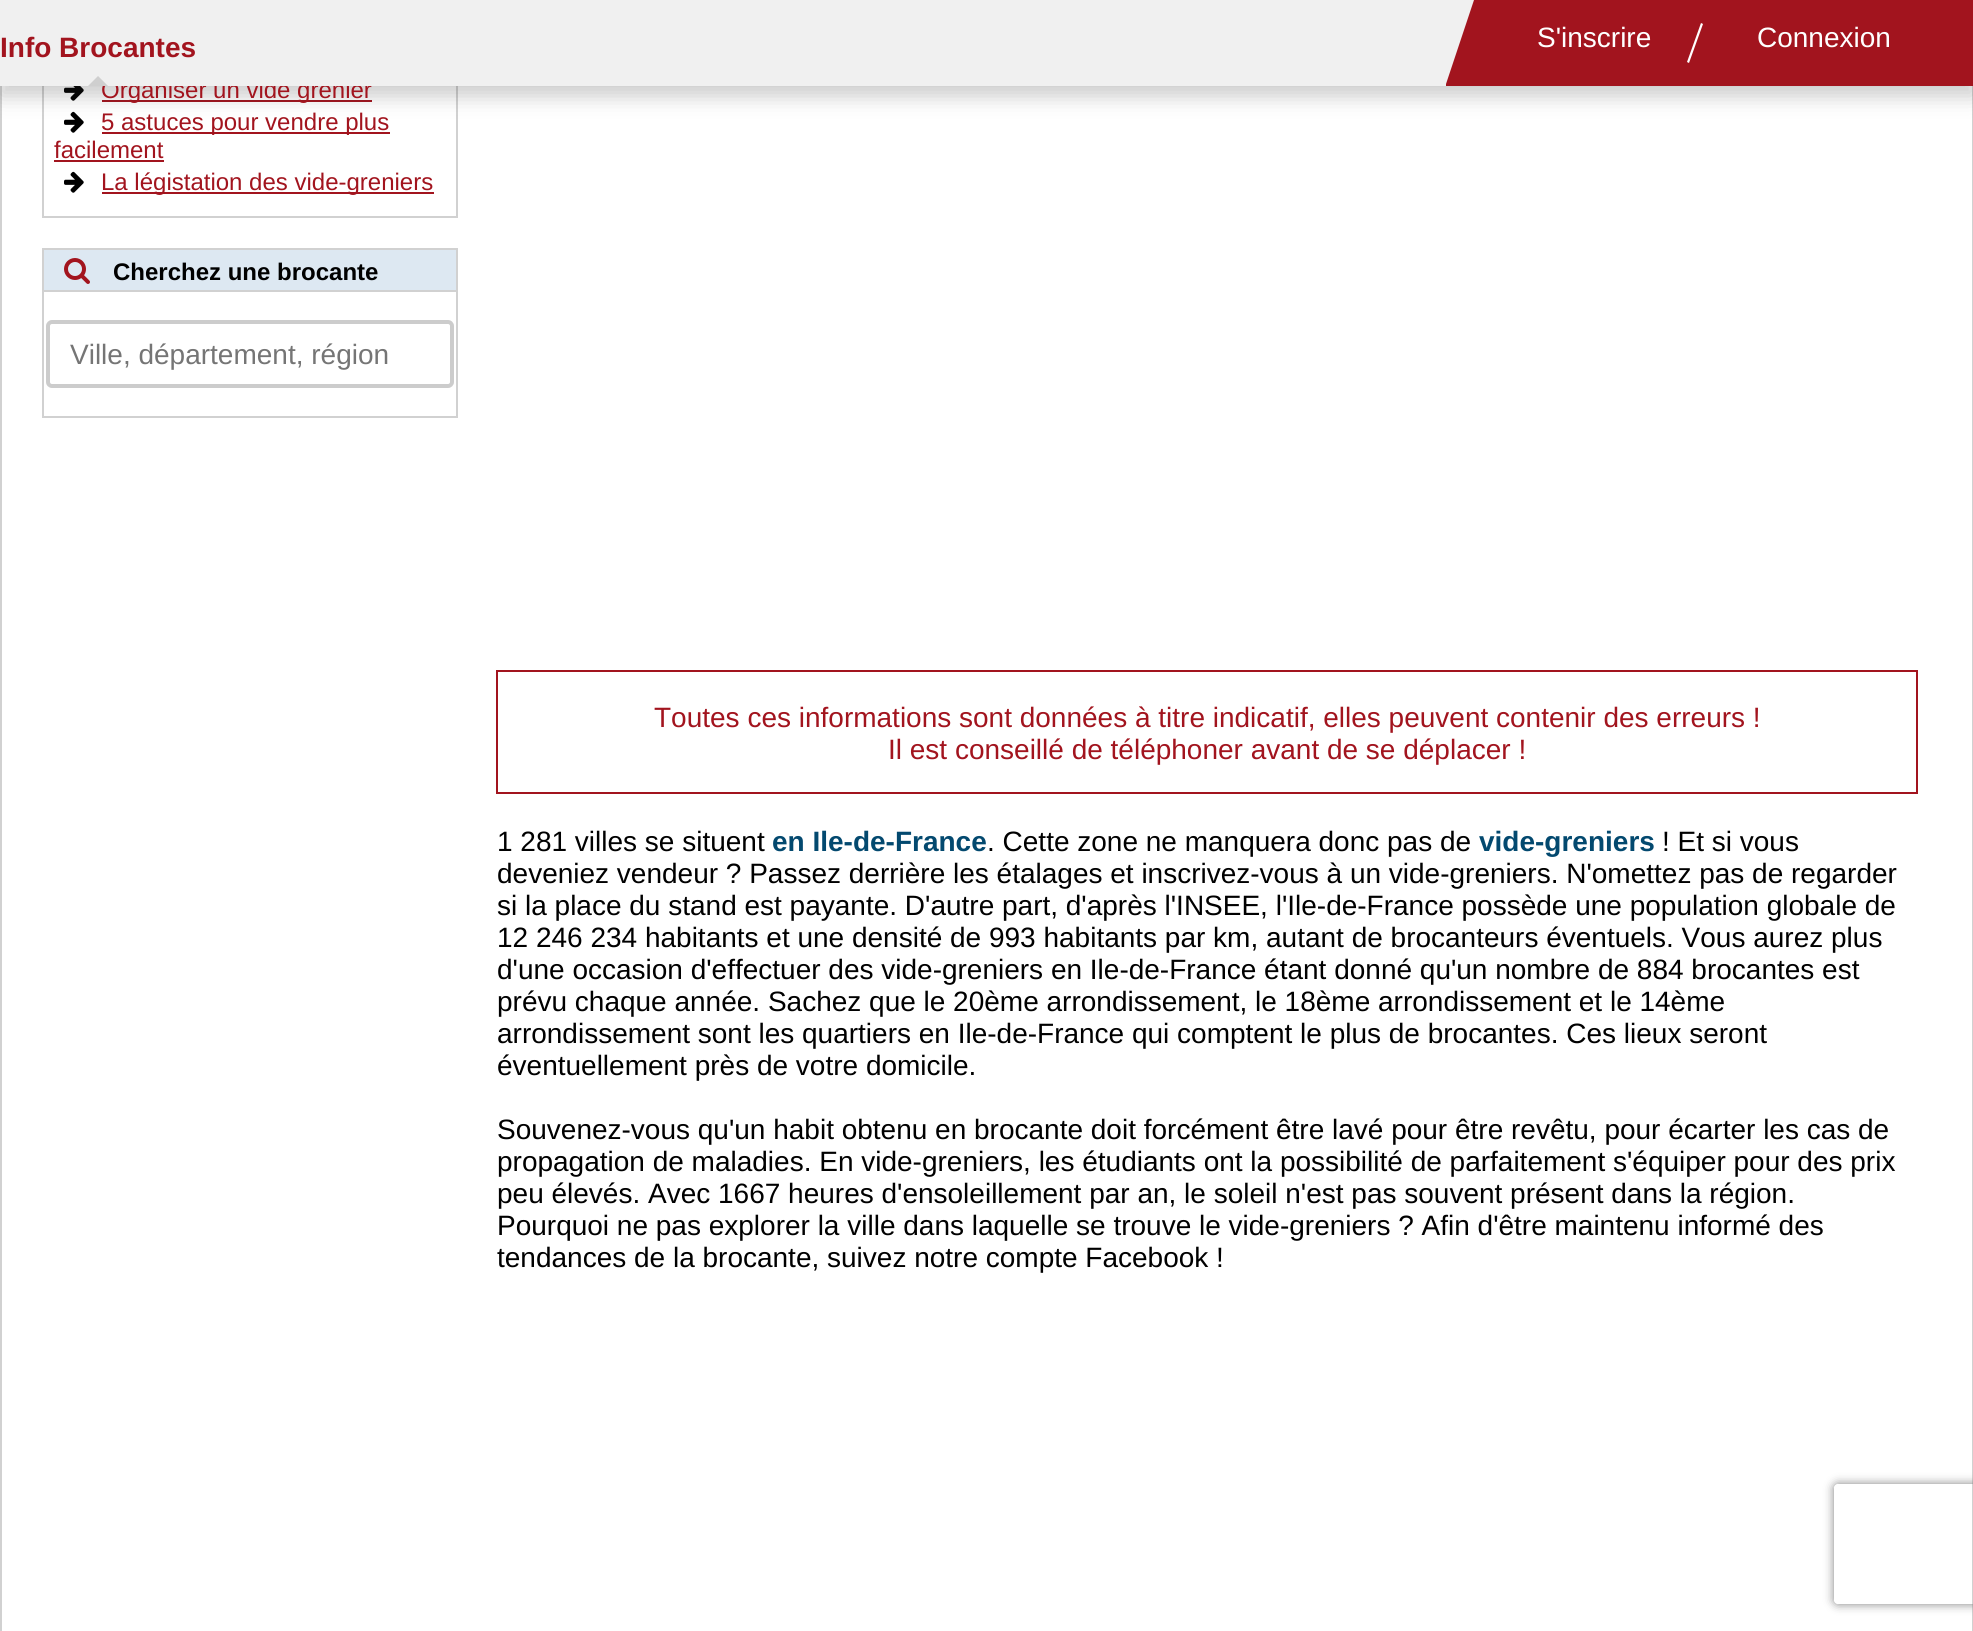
import math
import cairo

surface = cairo.ImageSurface(cairo.FORMAT_RGB24, 1973, 1631)
ctx = cairo.Context(surface)
options = cairo.FontOptions()
options.set_hint_metrics(cairo.HINT_METRICS_OFF)
options.set_hint_style(cairo.HINT_STYLE_NONE)
ctx.set_font_options(options)
ctx.set_miter_limit(4)


def set_color(code):
    ctx.set_source_rgb(*(v / 255 for v in bytes.fromhex(code[-6:])))


def draw_text(x, y, s, family, size, color, bold=False, italic=False):
    ctx.select_font_face(family, cairo.FONT_SLANT_ITALIC if italic else cairo.FONT_SLANT_NORMAL, cairo.FONT_WEIGHT_BOLD if bold else cairo.FONT_WEIGHT_NORMAL)
    ctx.set_font_size(size)
    set_color(color)
    ctx.move_to(x, y)
    ctx.show_text(s)


def fill_rect(x, y, w, h, color):
    set_color(color)
    ctx.rectangle(x, y, w, h)
    ctx.fill()


def rounded_rect(x, y, w, h, r):
    ctx.new_sub_path()
    for i, (u, v) in enumerate([(x + w - r, y + h - r), (x + r, y + h - r), (x + r, y + r), (x + w - r, y + r)]):
        ctx.arc(u, v, r, i * math.pi / 2, (i + 1) * math.pi / 2)
    ctx.close_path()


def draw_shadow(x, y, w, h, r, blur, alpha):
    ctx.push_group_with_content(cairo.CONTENT_ALPHA)
    ctx.set_operator(cairo.OPERATOR_SOURCE)
    for i in range(15, -16, -2):
        e = blur * i / 6
        if min(w, h) + 2 * e > 0:
            ctx.set_source_rgba(0, 0, 0, alpha * math.erfc((i - 1) / 8.5) / 2)
            rounded_rect(x - e, y - e, w + 2 * e, h + 2 * e, max(0, min(r + e + blur * .6, min(w, h) / 2 + e)))
            ctx.fill()
    ctx.mask(ctx.pop_group())


def draw_image(path, x, y, w, h):
    ctx.save()
    ctx.set_source_surface(cairo.ImageSurface.create_from_png(path), x, y)
    ctx.rectangle(x, y, w, h)
    ctx.fill()
    ctx.restore()


set_color("#ffffff")
ctx.paint()
fill_rect(1972, 86, 1, 1545, "#d1d1d1")
fill_rect(0, 86, 2, 1545, "#d1d1d1")
fill_rect(456, 86, 2, 132, "#d1d1d1")
fill_rect(42, 216, 416, 2, "#d1d1d1")
fill_rect(42, 86, 2, 132, "#d1d1d1")
draw_image("assets/img1.png", 64, 86, 20, 15)
fill_rect(102, 100, 270, 2, "#a2141e")
draw_image("assets/img2.png", 64, 111, 20, 22)
set_color("#2b2b2b")
draw_shadow(0, 10, 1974, 86, 0, 10.5, 0.25)
draw_text(101, 98, "Organiser un vide grenier", "Liberation Sans", 24, "#a2141e")
fill_rect(0, 0, 1474, 86, "#f0f0f0")
draw_text(0, 57, "Info Brocantes", "Liberation Sans", 28, "#a2141e", bold=True)
set_color("#cfcfcf")
ctx.new_path()
ctx.move_to(108, 86)
ctx.line_to(88, 86)
ctx.line_to(98, 76)
ctx.close_path()
ctx.fill()
fill_rect(1474, 0, 499, 86, "#a2141e")
ctx.new_path()
ctx.move_to(1474, 0)
ctx.line_to(1474, 86)
ctx.line_to(1446, 86)
ctx.line_to(1446, 84)
ctx.close_path()
ctx.fill()
draw_text(1537, 47, "S'inscrire", "Liberation Sans", 28, "#ffffff")
ctx.new_path()
ctx.move_to(1701, 23)
ctx.line_to(1703, 24)
ctx.line_to(1689, 63)
ctx.line_to(1687, 62)
ctx.close_path()
ctx.fill()
draw_text(1757, 47, "Connexion", "Liberation Sans", 28, "#ffffff")
fill_rect(102, 132, 288, 2, "#a2141e")
draw_text(101, 130, "5 astuces pour vendre plus", "Liberation Sans", 24, "#a2141e")
draw_text(54, 158, "facilement", "Liberation Sans", 24, "#a2141e")
fill_rect(54, 160, 110, 2, "#a2141e")
draw_image("assets/img2.png", 64, 171, 20, 22)
fill_rect(102, 192, 332, 2, "#a2141e")
draw_text(101, 190, "La légistation des vide-greniers", "Liberation Sans", 24, "#a2141e")
fill_rect(456, 248, 2, 170, "#d1d1d1")
fill_rect(42, 416, 416, 2, "#d1d1d1")
fill_rect(42, 248, 2, 170, "#d1d1d1")
fill_rect(44, 250, 412, 40, "#dde8f2")
fill_rect(44, 248, 412, 2, "#d1d1d1")
fill_rect(44, 290, 412, 2, "#d1d1d1")
draw_image("assets/img3.png", 64, 258, 26, 26)
draw_text(113, 280, "Cherchez une brocante", "Liberation Sans", 24, "#000000", bold=True)
rounded_rect(48, 322, 404, 64, 4)
set_color("#cccccc")
ctx.set_line_width(4)
ctx.stroke()
draw_text(70, 364, "Ville, département, région", "Liberation Sans", 28, "#757575")
ctx.rectangle(497, 671, 1420, 122)
set_color("#a2141e")
ctx.set_line_width(2)
ctx.stroke()
draw_text(654, 727, "Toutes ces informations sont données à titre indicatif, elles peuvent contenir des erreurs !", "Liberation Sans", 28, "#a2141e")
draw_text(888, 759, "Il est conseillé de téléphoner avant de se déplacer !", "Liberation Sans", 28, "#a2141e")
draw_text(497, 851, "1 281 villes se situent", "Liberation Sans", 28, "#000000")
draw_text(772, 851, "en Ile-de-France", "Liberation Sans", 28, "#03496f", bold=True)
draw_text(987, 851, ". Cette zone ne manquera donc pas de", "Liberation Sans", 28, "#000000")
draw_text(1479, 851, "vide-greniers", "Liberation Sans", 28, "#03496f", bold=True)
draw_text(1662, 851, "! Et si vous", "Liberation Sans", 28, "#000000")
draw_text(497, 883, "deveniez vendeur ? Passez derrière les étalages et inscrivez-vous à un vide-greniers. N'omettez pas de regarder", "Liberation Sans", 28, "#000000")
draw_text(497, 915, "si la place du stand est payante. D'autre part, d'après l'INSEE, l'Ile-de-France possède une population globale de", "Liberation Sans", 28, "#000000")
draw_text(497, 947, "12 246 234 habitants et une densité de 993 habitants par km, autant de brocanteurs éventuels. Vous aurez plus", "Liberation Sans", 28, "#000000")
draw_text(497, 979, "d'une occasion d'effectuer des vide-greniers en Ile-de-France étant donné qu'un nombre de 884 brocantes est", "Liberation Sans", 28, "#000000")
draw_text(497, 1011, "prévu chaque année. Sachez que le 20ème arrondissement, le 18ème arrondissement et le 14ème", "Liberation Sans", 28, "#000000")
draw_text(497, 1043, "arrondissement sont les quartiers en Ile-de-France qui comptent le plus de brocantes. Ces lieux seront", "Liberation Sans", 28, "#000000")
draw_text(497, 1075, "éventuellement près de votre domicile.", "Liberation Sans", 28, "#000000")
draw_text(497, 1139, "Souvenez-vous qu'un habit obtenu en brocante doit forcément être lavé pour être revêtu, pour écarter les cas de", "Liberation Sans", 28, "#000000")
draw_text(497, 1171, "propagation de maladies. En vide-greniers, les étudiants ont la possibilité de parfaitement s'équiper pour des prix", "Liberation Sans", 28, "#000000")
draw_text(497, 1203, "peu élevés. Avec 1667 heures d'ensoleillement par an, le soleil n'est pas souvent présent dans la région.", "Liberation Sans", 28, "#000000")
draw_text(497, 1235, "Pourquoi ne pas explorer la ville dans laquelle se trouve le vide-greniers ? Afin d'être maintenu informé des", "Liberation Sans", 28, "#000000")
draw_text(497, 1267, "tendances de la brocante, suivez notre compte Facebook !", "Liberation Sans", 28, "#000000")
ctx.save()
ctx.set_fill_rule(cairo.FILL_RULE_EVEN_ODD)
ctx.new_path()
ctx.move_to(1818, 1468)
ctx.line_to(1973, 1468)
ctx.line_to(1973, 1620)
ctx.line_to(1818, 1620)
ctx.close_path()
ctx.move_to(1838, 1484)
ctx.line_to(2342, 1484)
ctx.curve_to(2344, 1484, 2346, 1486, 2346, 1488)
ctx.line_to(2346, 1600)
ctx.curve_to(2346, 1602, 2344, 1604, 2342, 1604)
ctx.line_to(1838, 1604)
ctx.curve_to(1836, 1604, 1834, 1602, 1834, 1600)
ctx.line_to(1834, 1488)
ctx.curve_to(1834, 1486, 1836, 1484, 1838, 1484)
ctx.close_path()
ctx.clip()
set_color("#808080")
draw_shadow(1834, 1484, 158, 120, 4, 5, 1)
ctx.restore()
surface.write_to_png("output.png")
